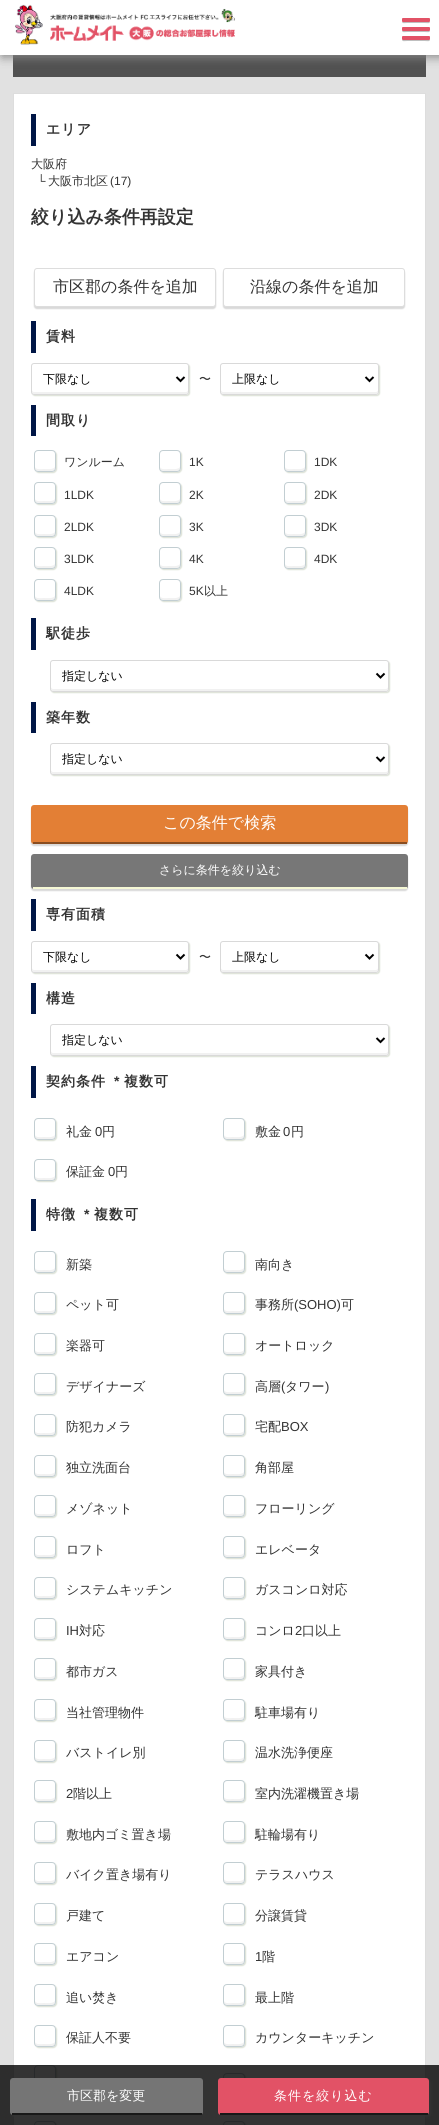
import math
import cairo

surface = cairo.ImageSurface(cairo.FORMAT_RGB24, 439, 2125)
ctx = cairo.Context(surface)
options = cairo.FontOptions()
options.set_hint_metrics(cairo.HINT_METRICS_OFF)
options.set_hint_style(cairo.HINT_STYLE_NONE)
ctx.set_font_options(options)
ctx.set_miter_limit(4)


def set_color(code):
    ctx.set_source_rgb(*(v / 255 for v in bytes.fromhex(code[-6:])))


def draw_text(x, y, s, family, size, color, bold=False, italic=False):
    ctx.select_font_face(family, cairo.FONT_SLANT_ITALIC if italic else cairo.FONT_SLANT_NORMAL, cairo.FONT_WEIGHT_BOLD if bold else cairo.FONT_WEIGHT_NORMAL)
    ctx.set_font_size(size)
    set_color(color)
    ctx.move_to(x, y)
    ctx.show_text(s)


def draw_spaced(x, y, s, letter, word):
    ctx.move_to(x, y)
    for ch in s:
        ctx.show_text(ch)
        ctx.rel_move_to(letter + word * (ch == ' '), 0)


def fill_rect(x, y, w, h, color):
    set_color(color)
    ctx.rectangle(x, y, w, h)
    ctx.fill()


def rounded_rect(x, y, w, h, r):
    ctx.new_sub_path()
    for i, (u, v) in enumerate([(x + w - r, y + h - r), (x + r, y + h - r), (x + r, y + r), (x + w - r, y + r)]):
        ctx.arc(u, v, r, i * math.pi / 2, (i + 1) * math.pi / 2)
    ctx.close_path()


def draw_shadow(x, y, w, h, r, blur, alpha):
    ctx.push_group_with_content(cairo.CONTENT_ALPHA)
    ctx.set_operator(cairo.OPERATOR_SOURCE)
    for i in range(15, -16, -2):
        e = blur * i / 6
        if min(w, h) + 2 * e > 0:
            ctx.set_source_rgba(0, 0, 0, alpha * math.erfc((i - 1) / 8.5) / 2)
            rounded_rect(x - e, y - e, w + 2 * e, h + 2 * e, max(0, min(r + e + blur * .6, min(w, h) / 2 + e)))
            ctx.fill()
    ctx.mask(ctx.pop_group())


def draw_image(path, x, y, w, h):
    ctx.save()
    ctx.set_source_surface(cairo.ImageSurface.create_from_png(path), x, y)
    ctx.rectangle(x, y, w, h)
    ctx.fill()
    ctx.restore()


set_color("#e1e1e1")
ctx.paint()
fill_rect(13, 55, 413, 22, "#515151")
set_color("#888888")
draw_shadow(2, 2, 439, 55, 0, 5, 1)
fill_rect(0, 0, 439, 55, "#ffffff")
set_color("#bfbfbf")
ctx.new_path()
ctx.move_to(402, 21)
ctx.curve_to(402, 24, 404, 23, 407.5, 23)
ctx.line_to(424.5, 23)
ctx.curve_to(428, 23, 430, 24, 430, 21)
ctx.line_to(429.5, 22)
ctx.line_to(402.5, 22)
ctx.close_path()
ctx.fill()
set_color("#e25266")
rounded_rect(402, 18, 28, 4, 1)
ctx.fill()
set_color("#bfbfbf")
ctx.new_path()
ctx.move_to(402, 30)
ctx.curve_to(402, 33, 404, 32, 407.5, 32)
ctx.line_to(424.5, 32)
ctx.curve_to(428, 32, 430, 33, 430, 30)
ctx.line_to(429.5, 31)
ctx.line_to(402.5, 31)
ctx.close_path()
ctx.fill()
set_color("#e25266")
rounded_rect(402, 27, 28, 4, 1)
ctx.fill()
set_color("#bfbfbf")
ctx.new_path()
ctx.move_to(402, 39)
ctx.curve_to(402, 42, 404, 41, 407.5, 41)
ctx.line_to(424.5, 41)
ctx.curve_to(428, 41, 430, 42, 430, 39)
ctx.line_to(429.5, 40)
ctx.line_to(402.5, 40)
ctx.close_path()
ctx.fill()
set_color("#e25266")
rounded_rect(402, 36, 28, 4, 1)
ctx.fill()
draw_image("assets/img1.png", 15, 4, 220, 41)
set_color("#ffffff")
ctx.rectangle(13.5, 93.5, 412, 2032)
ctx.fill_preserve()
set_color("#dddddd")
ctx.set_line_width(1)
ctx.stroke()
fill_rect(31, 114, 5, 32, "#001646")
ctx.select_font_face("WenQuanYi Zen Hei", cairo.FONT_SLANT_NORMAL, cairo.FONT_WEIGHT_BOLD)
ctx.set_font_size(14)
set_color("#333333")
draw_spaced(46, 134, "エリア", 1, 0)
draw_text(31, 168, "大阪府", "WenQuanYi Zen Hei Medium", 12, "#333333")
draw_text(37, 185, "└", "Liberation Sans", 12, "#333333")
draw_text(48, 185, "大阪市北区", "WenQuanYi Zen Hei Medium", 12, "#333333")
draw_text(110, 185, "(17)", "Liberation Sans", 12, "#333333")
draw_text(31, 223, "絞り込み条件再設定", "WenQuanYi Zen Hei", 18, "#333333", bold=True)
set_color("#d9d9d9")
draw_shadow(34, 270, 182, 39, 3, 0.5, 1)
set_color("#ffffff")
rounded_rect(34.5, 268.5, 181, 38, 2.5)
ctx.fill_preserve()
set_color("#dddddd")
ctx.stroke()
draw_text(53, 292, "市区郡の条件を追加", "WenQuanYi Zen Hei Medium", 16, "#333333")
set_color("#d9d9d9")
draw_shadow(223, 270, 182, 39, 3, 0.5, 1)
set_color("#ffffff")
rounded_rect(223.5, 268.5, 181, 38, 2.5)
ctx.fill_preserve()
set_color("#dddddd")
ctx.stroke()
draw_text(250, 292, "沿線の条件を追加", "WenQuanYi Zen Hei Medium", 16, "#333333")
fill_rect(31, 321, 5, 32, "#001646")
ctx.select_font_face("WenQuanYi Zen Hei", cairo.FONT_SLANT_NORMAL, cairo.FONT_WEIGHT_BOLD)
ctx.set_font_size(14)
set_color("#333333")
draw_spaced(46, 341, "賃料", 1, 0)
set_color("#d2d9ca")
draw_shadow(32, 364, 158, 32, 3, 0.5, 0.8)
set_color("#ffffff")
rounded_rect(31, 363, 158, 32, 3)
ctx.fill()
set_color("#f1f1f1")
ctx.new_path()
ctx.move_to(32, 390)
ctx.line_to(32, 392)
ctx.curve_to(32, 393, 33, 394, 34, 394)
ctx.line_to(186, 394)
ctx.curve_to(187, 394, 188, 393, 188, 392)
ctx.line_to(188, 390)
ctx.curve_to(188, 391, 187, 392, 186, 392)
ctx.line_to(34, 392)
ctx.curve_to(33, 392, 32, 391, 32, 390)
ctx.close_path()
ctx.fill()
rounded_rect(31.5, 363.5, 157, 31, 2.5)
set_color("#d9d9d9")
ctx.stroke()
ctx.new_path()
ctx.move_to(176.5, 377)
ctx.line_to(180.5, 381)
ctx.line_to(184.5, 377)
set_color("#000000")
ctx.set_line_width(2)
ctx.stroke()
draw_text(43, 383, "下限なし", "WenQuanYi Zen Hei Medium", 12, "#000000")
draw_text(199, 383, "〜", "WenQuanYi Zen Hei Medium", 12, "#333333")
set_color("#d2d9ca")
draw_shadow(221, 364, 159, 32, 3, 0.5, 0.8)
set_color("#ffffff")
rounded_rect(220, 363, 159, 32, 3)
ctx.fill()
set_color("#f1f1f1")
ctx.new_path()
ctx.move_to(221, 390)
ctx.line_to(221, 392)
ctx.curve_to(221, 393, 222, 394, 223, 394)
ctx.line_to(376, 394)
ctx.curve_to(377, 394, 378, 393, 378, 392)
ctx.line_to(378, 390)
ctx.curve_to(378, 391, 377, 392, 376, 392)
ctx.line_to(223, 392)
ctx.curve_to(222, 392, 221, 391, 221, 390)
ctx.close_path()
ctx.fill()
rounded_rect(220.5, 363.5, 158, 31, 2.5)
set_color("#d9d9d9")
ctx.set_line_width(1)
ctx.stroke()
ctx.new_path()
ctx.move_to(365.5, 377)
ctx.line_to(369.5, 381)
ctx.line_to(373.5, 377)
set_color("#000000")
ctx.set_line_width(2)
ctx.stroke()
draw_text(232, 383, "上限なし", "WenQuanYi Zen Hei Medium", 12, "#000000")
fill_rect(31, 405, 5, 31, "#001646")
ctx.select_font_face("WenQuanYi Zen Hei", cairo.FONT_SLANT_NORMAL, cairo.FONT_WEIGHT_BOLD)
ctx.set_font_size(14)
set_color("#333333")
draw_spaced(46, 425, "間取り", 1, 0)
set_color("#d2d9ca")
draw_shadow(35, 451, 22, 22, 4, 0.5, 0.8)
set_color("#ffffff")
rounded_rect(34, 450, 22, 22, 4)
ctx.fill()
set_color("#f1f1f1")
ctx.new_path()
ctx.move_to(55, 466.5)
ctx.curve_to(54, 470, 46.5, 469, 44, 469)
ctx.curve_to(41.5, 469, 36, 470, 35, 467)
ctx.curve_to(35, 471, 37, 471, 40.5, 471)
ctx.line_to(49.5, 471)
ctx.curve_to(53.5, 471, 55, 471, 55, 466.5)
ctx.close_path()
ctx.fill()
rounded_rect(34.5, 450.5, 21, 21, 3.5)
set_color("#c2ced2")
ctx.set_line_width(1)
ctx.stroke()
draw_text(64, 466, "ワンルーム", "WenQuanYi Zen Hei Medium", 12, "#333333")
set_color("#d2d9ca")
draw_shadow(160, 451, 22, 22, 4, 0.5, 0.8)
set_color("#ffffff")
rounded_rect(159, 450, 22, 22, 4)
ctx.fill()
set_color("#f1f1f1")
ctx.new_path()
ctx.move_to(180, 466.5)
ctx.curve_to(179, 470, 171.5, 469, 169, 469)
ctx.curve_to(166.5, 469, 161, 470, 160, 467)
ctx.curve_to(160, 471, 162, 471, 165.5, 471)
ctx.line_to(174.5, 471)
ctx.curve_to(178.5, 471, 180, 471, 180, 466.5)
ctx.close_path()
ctx.fill()
rounded_rect(159.5, 450.5, 21, 21, 3.5)
set_color("#c2ced2")
ctx.stroke()
draw_text(189, 466, "1K", "Liberation Sans", 12, "#333333")
set_color("#d2d9ca")
draw_shadow(285, 451, 22, 22, 4, 0.5, 0.8)
set_color("#ffffff")
rounded_rect(284, 450, 22, 22, 4)
ctx.fill()
set_color("#f1f1f1")
ctx.new_path()
ctx.move_to(305, 466.5)
ctx.curve_to(304, 470, 296.5, 469, 294, 469)
ctx.curve_to(291.5, 469, 286, 470, 285, 467)
ctx.curve_to(285, 471, 287, 471, 290.5, 471)
ctx.line_to(299.5, 471)
ctx.curve_to(303.5, 471, 305, 471, 305, 466.5)
ctx.close_path()
ctx.fill()
rounded_rect(284.5, 450.5, 21, 21, 3.5)
set_color("#c2ced2")
ctx.stroke()
draw_text(314, 466, "1DK", "Liberation Sans", 12, "#333333")
set_color("#d2d9ca")
draw_shadow(35, 483, 22, 22, 4, 0.5, 0.8)
set_color("#ffffff")
rounded_rect(34, 482, 22, 22, 4)
ctx.fill()
set_color("#f1f1f1")
ctx.new_path()
ctx.move_to(55, 498.5)
ctx.curve_to(54, 502, 46.5, 501, 44, 501)
ctx.curve_to(41.5, 501, 36, 502, 35, 499)
ctx.curve_to(35, 503, 37, 503, 40.5, 503)
ctx.line_to(49.5, 503)
ctx.curve_to(53.5, 503, 55, 503, 55, 498.5)
ctx.close_path()
ctx.fill()
rounded_rect(34.5, 482.5, 21, 21, 3.5)
set_color("#c2ced2")
ctx.stroke()
draw_text(64, 499, "1LDK", "Liberation Sans", 12, "#333333")
set_color("#d2d9ca")
draw_shadow(160, 483, 22, 22, 4, 0.5, 0.8)
set_color("#ffffff")
rounded_rect(159, 482, 22, 22, 4)
ctx.fill()
set_color("#f1f1f1")
ctx.new_path()
ctx.move_to(180, 498.5)
ctx.curve_to(179, 502, 171.5, 501, 169, 501)
ctx.curve_to(166.5, 501, 161, 502, 160, 499)
ctx.curve_to(160, 503, 162, 503, 165.5, 503)
ctx.line_to(174.5, 503)
ctx.curve_to(178.5, 503, 180, 503, 180, 498.5)
ctx.close_path()
ctx.fill()
rounded_rect(159.5, 482.5, 21, 21, 3.5)
set_color("#c2ced2")
ctx.stroke()
draw_text(189, 499, "2K", "Liberation Sans", 12, "#333333")
set_color("#d2d9ca")
draw_shadow(285, 483, 22, 22, 4, 0.5, 0.8)
set_color("#ffffff")
rounded_rect(284, 482, 22, 22, 4)
ctx.fill()
set_color("#f1f1f1")
ctx.new_path()
ctx.move_to(305, 498.5)
ctx.curve_to(304, 502, 296.5, 501, 294, 501)
ctx.curve_to(291.5, 501, 286, 502, 285, 499)
ctx.curve_to(285, 503, 287, 503, 290.5, 503)
ctx.line_to(299.5, 503)
ctx.curve_to(303.5, 503, 305, 503, 305, 498.5)
ctx.close_path()
ctx.fill()
rounded_rect(284.5, 482.5, 21, 21, 3.5)
set_color("#c2ced2")
ctx.stroke()
draw_text(314, 499, "2DK", "Liberation Sans", 12, "#333333")
set_color("#d2d9ca")
draw_shadow(35, 516, 22, 22, 4, 0.5, 0.8)
set_color("#ffffff")
rounded_rect(34, 515, 22, 22, 4)
ctx.fill()
set_color("#f1f1f1")
ctx.new_path()
ctx.move_to(55, 531.5)
ctx.curve_to(54, 535, 46.5, 534, 44, 534)
ctx.curve_to(41.5, 534, 36, 535, 35, 532)
ctx.curve_to(35, 536, 37, 536, 40.5, 536)
ctx.line_to(49.5, 536)
ctx.curve_to(53.5, 536, 55, 536, 55, 531.5)
ctx.close_path()
ctx.fill()
rounded_rect(34.5, 515.5, 21, 21, 3.5)
set_color("#c2ced2")
ctx.stroke()
draw_text(64, 531, "2LDK", "Liberation Sans", 12, "#333333")
set_color("#d2d9ca")
draw_shadow(160, 516, 22, 22, 4, 0.5, 0.8)
set_color("#ffffff")
rounded_rect(159, 515, 22, 22, 4)
ctx.fill()
set_color("#f1f1f1")
ctx.new_path()
ctx.move_to(180, 531.5)
ctx.curve_to(179, 535, 171.5, 534, 169, 534)
ctx.curve_to(166.5, 534, 161, 535, 160, 532)
ctx.curve_to(160, 536, 162, 536, 165.5, 536)
ctx.line_to(174.5, 536)
ctx.curve_to(178.5, 536, 180, 536, 180, 531.5)
ctx.close_path()
ctx.fill()
rounded_rect(159.5, 515.5, 21, 21, 3.5)
set_color("#c2ced2")
ctx.stroke()
draw_text(189, 531, "3K", "Liberation Sans", 12, "#333333")
set_color("#d2d9ca")
draw_shadow(285, 516, 22, 22, 4, 0.5, 0.8)
set_color("#ffffff")
rounded_rect(284, 515, 22, 22, 4)
ctx.fill()
set_color("#f1f1f1")
ctx.new_path()
ctx.move_to(305, 531.5)
ctx.curve_to(304, 535, 296.5, 534, 294, 534)
ctx.curve_to(291.5, 534, 286, 535, 285, 532)
ctx.curve_to(285, 536, 287, 536, 290.5, 536)
ctx.line_to(299.5, 536)
ctx.curve_to(303.5, 536, 305, 536, 305, 531.5)
ctx.close_path()
ctx.fill()
rounded_rect(284.5, 515.5, 21, 21, 3.5)
set_color("#c2ced2")
ctx.stroke()
draw_text(314, 531, "3DK", "Liberation Sans", 12, "#333333")
set_color("#d2d9ca")
draw_shadow(35, 548, 22, 22, 4, 0.5, 0.8)
set_color("#ffffff")
rounded_rect(34, 547, 22, 22, 4)
ctx.fill()
set_color("#f1f1f1")
ctx.new_path()
ctx.move_to(55, 563.5)
ctx.curve_to(54, 567, 46.5, 566, 44, 566)
ctx.curve_to(41.5, 566, 36, 567, 35, 564)
ctx.curve_to(35, 568, 37, 568, 40.5, 568)
ctx.line_to(49.5, 568)
ctx.curve_to(53.5, 568, 55, 568, 55, 563.5)
ctx.close_path()
ctx.fill()
rounded_rect(34.5, 547.5, 21, 21, 3.5)
set_color("#c2ced2")
ctx.stroke()
draw_text(64, 563, "3LDK", "Liberation Sans", 12, "#333333")
set_color("#d2d9ca")
draw_shadow(160, 548, 22, 22, 4, 0.5, 0.8)
set_color("#ffffff")
rounded_rect(159, 547, 22, 22, 4)
ctx.fill()
set_color("#f1f1f1")
ctx.new_path()
ctx.move_to(180, 563.5)
ctx.curve_to(179, 567, 171.5, 566, 169, 566)
ctx.curve_to(166.5, 566, 161, 567, 160, 564)
ctx.curve_to(160, 568, 162, 568, 165.5, 568)
ctx.line_to(174.5, 568)
ctx.curve_to(178.5, 568, 180, 568, 180, 563.5)
ctx.close_path()
ctx.fill()
rounded_rect(159.5, 547.5, 21, 21, 3.5)
set_color("#c2ced2")
ctx.stroke()
draw_text(189, 563, "4K", "Liberation Sans", 12, "#333333")
set_color("#d2d9ca")
draw_shadow(285, 548, 22, 22, 4, 0.5, 0.8)
set_color("#ffffff")
rounded_rect(284, 547, 22, 22, 4)
ctx.fill()
set_color("#f1f1f1")
ctx.new_path()
ctx.move_to(305, 563.5)
ctx.curve_to(304, 567, 296.5, 566, 294, 566)
ctx.curve_to(291.5, 566, 286, 567, 285, 564)
ctx.curve_to(285, 568, 287, 568, 290.5, 568)
ctx.line_to(299.5, 568)
ctx.curve_to(303.5, 568, 305, 568, 305, 563.5)
ctx.close_path()
ctx.fill()
rounded_rect(284.5, 547.5, 21, 21, 3.5)
set_color("#c2ced2")
ctx.stroke()
draw_text(314, 563, "4DK", "Liberation Sans", 12, "#333333")
set_color("#d2d9ca")
draw_shadow(35, 580, 22, 22, 4, 0.5, 0.8)
set_color("#ffffff")
rounded_rect(34, 579, 22, 22, 4)
ctx.fill()
set_color("#f1f1f1")
ctx.new_path()
ctx.move_to(55, 595.5)
ctx.curve_to(54, 599, 46.5, 598, 44, 598)
ctx.curve_to(41.5, 598, 36, 599, 35, 596)
ctx.curve_to(35, 600, 37, 600, 40.5, 600)
ctx.line_to(49.5, 600)
ctx.curve_to(53.5, 600, 55, 600, 55, 595.5)
ctx.close_path()
ctx.fill()
rounded_rect(34.5, 579.5, 21, 21, 3.5)
set_color("#c2ced2")
ctx.stroke()
draw_text(64, 595, "4LDK", "Liberation Sans", 12, "#333333")
set_color("#d2d9ca")
draw_shadow(160, 580, 22, 22, 4, 0.5, 0.8)
set_color("#ffffff")
rounded_rect(159, 579, 22, 22, 4)
ctx.fill()
set_color("#f1f1f1")
ctx.new_path()
ctx.move_to(180, 595.5)
ctx.curve_to(179, 599, 171.5, 598, 169, 598)
ctx.curve_to(166.5, 598, 161, 599, 160, 596)
ctx.curve_to(160, 600, 162, 600, 165.5, 600)
ctx.line_to(174.5, 600)
ctx.curve_to(178.5, 600, 180, 600, 180, 595.5)
ctx.close_path()
ctx.fill()
rounded_rect(159.5, 579.5, 21, 21, 3.5)
set_color("#c2ced2")
ctx.stroke()
draw_text(189, 595, "5K", "Liberation Sans", 12, "#333333")
draw_text(204, 595, "以上", "WenQuanYi Zen Hei Medium", 12, "#333333")
fill_rect(31, 618, 5, 32, "#001646")
ctx.select_font_face("WenQuanYi Zen Hei", cairo.FONT_SLANT_NORMAL, cairo.FONT_WEIGHT_BOLD)
ctx.set_font_size(14)
set_color("#333333")
draw_spaced(46, 638, "駅徒歩", 1, 0)
set_color("#d2d9ca")
draw_shadow(51, 661, 339, 32, 3, 0.5, 0.8)
set_color("#ffffff")
rounded_rect(50, 660, 339, 32, 3)
ctx.fill()
set_color("#f1f1f1")
ctx.new_path()
ctx.move_to(51, 687)
ctx.line_to(51, 689)
ctx.curve_to(51, 690, 52, 691, 53, 691)
ctx.line_to(386, 691)
ctx.curve_to(387, 691, 388, 690, 388, 689)
ctx.line_to(388, 687)
ctx.curve_to(388, 688, 387, 689, 386, 689)
ctx.line_to(53, 689)
ctx.curve_to(52, 689, 51, 688, 51, 687)
ctx.close_path()
ctx.fill()
rounded_rect(50.5, 660.5, 338, 31, 2.5)
set_color("#d9d9d9")
ctx.stroke()
ctx.new_path()
ctx.move_to(376.5, 673.5)
ctx.line_to(380.5, 677.5)
ctx.line_to(384.5, 673.5)
set_color("#000000")
ctx.set_line_width(2)
ctx.stroke()
ctx.save()
ctx.rectangle(62, 668, 303, 16)
ctx.clip()
draw_text(62, 680, "指定しない", "WenQuanYi Zen Hei Medium", 12, "#000000")
ctx.restore()
fill_rect(31, 702, 5, 31, "#001646")
set_color("#333333")
draw_spaced(46, 722, "築年数", 1, 0)
set_color("#d2d9ca")
draw_shadow(51, 744, 339, 32, 3, 0.5, 0.8)
set_color("#ffffff")
rounded_rect(50, 743, 339, 32, 3)
ctx.fill()
set_color("#f1f1f1")
ctx.new_path()
ctx.move_to(51, 770)
ctx.line_to(51, 772)
ctx.curve_to(51, 773, 52, 774, 53, 774)
ctx.line_to(386, 774)
ctx.curve_to(387, 774, 388, 773, 388, 772)
ctx.line_to(388, 770)
ctx.curve_to(388, 771, 387, 772, 386, 772)
ctx.line_to(53, 772)
ctx.curve_to(52, 772, 51, 771, 51, 770)
ctx.close_path()
ctx.fill()
rounded_rect(50.5, 743.5, 338, 31, 2.5)
set_color("#d9d9d9")
ctx.set_line_width(1)
ctx.stroke()
ctx.new_path()
ctx.move_to(376.5, 757)
ctx.line_to(380.5, 761)
ctx.line_to(384.5, 757)
set_color("#000000")
ctx.set_line_width(2)
ctx.stroke()
ctx.save()
ctx.rectangle(62, 751, 303, 16)
ctx.clip()
draw_text(62, 763, "指定しない", "WenQuanYi Zen Hei Medium", 12, "#000000")
ctx.restore()
set_color("#d9d9d9")
draw_shadow(31, 807, 377, 39, 3, 0.5, 1)
set_color("#e37f35")
rounded_rect(31, 805, 377, 39, 3)
ctx.fill()
fill_rect(33, 842, 374, 2, "#8a4d20")
draw_text(163, 828, "この条件で検索", "WenQuanYi Zen Hei Medium", 16, "#ffffff")
set_color("#d9d9d9")
draw_shadow(31, 856, 377, 35, 3, 0.5, 1)
set_color("#777777")
rounded_rect(31, 854, 377, 35, 3)
ctx.fill()
fill_rect(33, 887, 374, 2, "#f5f8d5")
draw_text(159, 874, "さらに条件を絞り込む", "WenQuanYi Zen Hei Medium", 12, "#ffffff")
fill_rect(31, 899, 5, 32, "#001646")
ctx.select_font_face("WenQuanYi Zen Hei", cairo.FONT_SLANT_NORMAL, cairo.FONT_WEIGHT_BOLD)
ctx.set_font_size(14)
set_color("#333333")
draw_spaced(46, 919, "専有面積", 1, 0)
set_color("#d2d9ca")
draw_shadow(32, 942, 158, 32, 3, 0.5, 0.8)
set_color("#ffffff")
rounded_rect(31, 941, 158, 32, 3)
ctx.fill()
set_color("#f1f1f1")
ctx.new_path()
ctx.move_to(32, 968)
ctx.line_to(32, 970)
ctx.curve_to(32, 971, 33, 972, 34, 972)
ctx.line_to(186, 972)
ctx.curve_to(187, 972, 188, 971, 188, 970)
ctx.line_to(188, 968)
ctx.curve_to(188, 969, 187, 970, 186, 970)
ctx.line_to(34, 970)
ctx.curve_to(33, 970, 32, 969, 32, 968)
ctx.close_path()
ctx.fill()
rounded_rect(31.5, 941.5, 157, 31, 2.5)
set_color("#d9d9d9")
ctx.set_line_width(1)
ctx.stroke()
ctx.new_path()
ctx.move_to(176.5, 954.5)
ctx.line_to(180.5, 958.5)
ctx.line_to(184.5, 954.5)
set_color("#000000")
ctx.set_line_width(2)
ctx.stroke()
draw_text(43, 961, "下限なし", "WenQuanYi Zen Hei Medium", 12, "#000000")
draw_text(199, 961, "〜", "WenQuanYi Zen Hei Medium", 12, "#333333")
set_color("#d2d9ca")
draw_shadow(221, 942, 159, 32, 3, 0.5, 0.8)
set_color("#ffffff")
rounded_rect(220, 941, 159, 32, 3)
ctx.fill()
set_color("#f1f1f1")
ctx.new_path()
ctx.move_to(221, 968)
ctx.line_to(221, 970)
ctx.curve_to(221, 971, 222, 972, 223, 972)
ctx.line_to(376, 972)
ctx.curve_to(377, 972, 378, 971, 378, 970)
ctx.line_to(378, 968)
ctx.curve_to(378, 969, 377, 970, 376, 970)
ctx.line_to(223, 970)
ctx.curve_to(222, 970, 221, 969, 221, 968)
ctx.close_path()
ctx.fill()
rounded_rect(220.5, 941.5, 158, 31, 2.5)
set_color("#d9d9d9")
ctx.set_line_width(1)
ctx.stroke()
ctx.new_path()
ctx.move_to(365.5, 954.5)
ctx.line_to(369.5, 958.5)
ctx.line_to(373.5, 954.5)
set_color("#000000")
ctx.set_line_width(2)
ctx.stroke()
draw_text(232, 961, "上限なし", "WenQuanYi Zen Hei Medium", 12, "#000000")
fill_rect(31, 983, 5, 31, "#001646")
ctx.select_font_face("WenQuanYi Zen Hei", cairo.FONT_SLANT_NORMAL, cairo.FONT_WEIGHT_BOLD)
ctx.set_font_size(14)
set_color("#333333")
draw_spaced(46, 1003, "構造", 1, 0)
set_color("#d2d9ca")
draw_shadow(51, 1025, 339, 32, 3, 0.5, 0.8)
set_color("#ffffff")
rounded_rect(50, 1024, 339, 32, 3)
ctx.fill()
set_color("#f1f1f1")
ctx.new_path()
ctx.move_to(51, 1051)
ctx.line_to(51, 1053)
ctx.curve_to(51, 1054, 52, 1055, 53, 1055)
ctx.line_to(386, 1055)
ctx.curve_to(387, 1055, 388, 1054, 388, 1053)
ctx.line_to(388, 1051)
ctx.curve_to(388, 1052, 387, 1053, 386, 1053)
ctx.line_to(53, 1053)
ctx.curve_to(52, 1053, 51, 1052, 51, 1051)
ctx.close_path()
ctx.fill()
rounded_rect(50.5, 1024.5, 338, 31, 2.5)
set_color("#d9d9d9")
ctx.set_line_width(1)
ctx.stroke()
ctx.new_path()
ctx.move_to(376.5, 1038)
ctx.line_to(380.5, 1042)
ctx.line_to(384.5, 1038)
set_color("#000000")
ctx.set_line_width(2)
ctx.stroke()
ctx.save()
ctx.rectangle(62, 1032, 303, 16)
ctx.clip()
draw_text(62, 1044, "指定しない", "WenQuanYi Zen Hei Medium", 12, "#000000")
ctx.restore()
fill_rect(31, 1066, 5, 32, "#001646")
set_color("#333333")
draw_spaced(46, 1086, "契約条件", 1, 0)
ctx.select_font_face("Liberation Sans", cairo.FONT_SLANT_NORMAL, cairo.FONT_WEIGHT_BOLD)
draw_spaced(114, 1086, "*", 1, 0)
ctx.select_font_face("WenQuanYi Zen Hei", cairo.FONT_SLANT_NORMAL, cairo.FONT_WEIGHT_BOLD)
draw_spaced(124, 1086, "複数可", 1, 0)
set_color("#d2d9ca")
draw_shadow(35, 1119, 22, 22, 4, 0.5, 0.8)
set_color("#ffffff")
rounded_rect(34, 1118, 22, 22, 4)
ctx.fill()
set_color("#f1f1f1")
ctx.new_path()
ctx.move_to(55, 1134.5)
ctx.curve_to(54, 1138, 46.5, 1137, 44, 1137)
ctx.curve_to(41.5, 1137, 36, 1138, 35, 1135)
ctx.curve_to(35, 1139, 37, 1139, 40.5, 1139)
ctx.line_to(49.5, 1139)
ctx.curve_to(53.5, 1139, 55, 1139, 55, 1134.5)
ctx.close_path()
ctx.fill()
rounded_rect(34.5, 1118.5, 21, 21, 3.5)
set_color("#c2ced2")
ctx.set_line_width(1)
ctx.stroke()
draw_text(66, 1136, "礼金", "WenQuanYi Zen Hei Medium", 13, "#333333")
draw_text(95, 1136, "0", "Liberation Sans", 13, "#333333")
draw_text(102, 1136, "円", "WenQuanYi Zen Hei Medium", 13, "#333333")
set_color("#d2d9ca")
draw_shadow(224, 1119, 22, 22, 4, 0.5, 0.8)
set_color("#ffffff")
rounded_rect(223, 1118, 22, 22, 4)
ctx.fill()
set_color("#f1f1f1")
ctx.new_path()
ctx.move_to(244, 1134.5)
ctx.curve_to(243, 1138, 235.5, 1137, 233, 1137)
ctx.curve_to(230.5, 1137, 225, 1138, 224, 1135)
ctx.curve_to(224, 1139, 226, 1139, 229.5, 1139)
ctx.line_to(238.5, 1139)
ctx.curve_to(242.5, 1139, 244, 1139, 244, 1134.5)
ctx.close_path()
ctx.fill()
rounded_rect(223.5, 1118.5, 21, 21, 3.5)
set_color("#c2ced2")
ctx.stroke()
draw_text(255, 1136, "敷金", "WenQuanYi Zen Hei Medium", 13, "#333333")
draw_text(283, 1136, "0", "Liberation Sans", 13, "#333333")
draw_text(291, 1136, "円", "WenQuanYi Zen Hei Medium", 13, "#333333")
set_color("#d2d9ca")
draw_shadow(35, 1160, 22, 22, 4, 0.5, 0.8)
set_color("#ffffff")
rounded_rect(34, 1159, 22, 22, 4)
ctx.fill()
set_color("#f1f1f1")
ctx.new_path()
ctx.move_to(55, 1175.5)
ctx.curve_to(54, 1179, 46.5, 1178, 44, 1178)
ctx.curve_to(41.5, 1178, 36, 1179, 35, 1176)
ctx.curve_to(35, 1180, 37, 1180, 40.5, 1180)
ctx.line_to(49.5, 1180)
ctx.curve_to(53.5, 1180, 55, 1180, 55, 1175.5)
ctx.close_path()
ctx.fill()
rounded_rect(34.5, 1159.5, 21, 21, 3.5)
set_color("#c2ced2")
ctx.stroke()
draw_text(66, 1176, "保証金", "WenQuanYi Zen Hei Medium", 13, "#333333")
draw_text(108, 1176, "0", "Liberation Sans", 13, "#333333")
draw_text(115, 1176, "円", "WenQuanYi Zen Hei Medium", 13, "#333333")
fill_rect(31, 1199, 5, 32, "#001646")
ctx.select_font_face("WenQuanYi Zen Hei", cairo.FONT_SLANT_NORMAL, cairo.FONT_WEIGHT_BOLD)
ctx.set_font_size(14)
set_color("#333333")
draw_spaced(46, 1219, "特徴", 1, 0)
ctx.select_font_face("Liberation Sans", cairo.FONT_SLANT_NORMAL, cairo.FONT_WEIGHT_BOLD)
draw_spaced(84, 1219, "*", 1, 0)
ctx.select_font_face("WenQuanYi Zen Hei", cairo.FONT_SLANT_NORMAL, cairo.FONT_WEIGHT_BOLD)
draw_spaced(94, 1219, "複数可", 1, 0)
set_color("#d2d9ca")
draw_shadow(35, 1252, 22, 22, 4, 0.5, 0.8)
set_color("#ffffff")
rounded_rect(34, 1251, 22, 22, 4)
ctx.fill()
set_color("#f1f1f1")
ctx.new_path()
ctx.move_to(55, 1267.5)
ctx.curve_to(54, 1271, 46.5, 1270, 44, 1270)
ctx.curve_to(41.5, 1270, 36, 1271, 35, 1268)
ctx.curve_to(35, 1272, 37, 1272, 40.5, 1272)
ctx.line_to(49.5, 1272)
ctx.curve_to(53.5, 1272, 55, 1272, 55, 1267.5)
ctx.close_path()
ctx.fill()
rounded_rect(34.5, 1251.5, 21, 21, 3.5)
set_color("#c2ced2")
ctx.stroke()
draw_text(66, 1269, "新築", "WenQuanYi Zen Hei Medium", 13, "#333333")
set_color("#d2d9ca")
draw_shadow(224, 1252, 22, 22, 4, 0.5, 0.8)
set_color("#ffffff")
rounded_rect(223, 1251, 22, 22, 4)
ctx.fill()
set_color("#f1f1f1")
ctx.new_path()
ctx.move_to(244, 1267.5)
ctx.curve_to(243, 1271, 235.5, 1270, 233, 1270)
ctx.curve_to(230.5, 1270, 225, 1271, 224, 1268)
ctx.curve_to(224, 1272, 226, 1272, 229.5, 1272)
ctx.line_to(238.5, 1272)
ctx.curve_to(242.5, 1272, 244, 1272, 244, 1267.5)
ctx.close_path()
ctx.fill()
rounded_rect(223.5, 1251.5, 21, 21, 3.5)
set_color("#c2ced2")
ctx.stroke()
draw_text(255, 1269, "南向き", "WenQuanYi Zen Hei Medium", 13, "#333333")
set_color("#d2d9ca")
draw_shadow(35, 1293, 22, 22, 4, 0.5, 0.8)
set_color("#ffffff")
rounded_rect(34, 1292, 22, 22, 4)
ctx.fill()
set_color("#f1f1f1")
ctx.new_path()
ctx.move_to(55, 1308.5)
ctx.curve_to(54, 1312, 46.5, 1311, 44, 1311)
ctx.curve_to(41.5, 1311, 36, 1312, 35, 1309)
ctx.curve_to(35, 1313, 37, 1313, 40.5, 1313)
ctx.line_to(49.5, 1313)
ctx.curve_to(53.5, 1313, 55, 1313, 55, 1308.5)
ctx.close_path()
ctx.fill()
rounded_rect(34.5, 1292.5, 21, 21, 3.5)
set_color("#c2ced2")
ctx.stroke()
draw_text(66, 1309, "ペット可", "WenQuanYi Zen Hei Medium", 13, "#333333")
set_color("#d2d9ca")
draw_shadow(224, 1293, 22, 22, 4, 0.5, 0.8)
set_color("#ffffff")
rounded_rect(223, 1292, 22, 22, 4)
ctx.fill()
set_color("#f1f1f1")
ctx.new_path()
ctx.move_to(244, 1308.5)
ctx.curve_to(243, 1312, 235.5, 1311, 233, 1311)
ctx.curve_to(230.5, 1311, 225, 1312, 224, 1309)
ctx.curve_to(224, 1313, 226, 1313, 229.5, 1313)
ctx.line_to(238.5, 1313)
ctx.curve_to(242.5, 1313, 244, 1313, 244, 1308.5)
ctx.close_path()
ctx.fill()
rounded_rect(223.5, 1292.5, 21, 21, 3.5)
set_color("#c2ced2")
ctx.stroke()
draw_text(255, 1309, "事務所", "WenQuanYi Zen Hei Medium", 13, "#333333")
draw_text(294, 1309, "(SOHO)", "Liberation Sans", 13, "#333333")
draw_text(341, 1309, "可", "WenQuanYi Zen Hei Medium", 13, "#333333")
set_color("#d2d9ca")
draw_shadow(35, 1334, 22, 22, 4, 0.5, 0.8)
set_color("#ffffff")
rounded_rect(34, 1333, 22, 22, 4)
ctx.fill()
set_color("#f1f1f1")
ctx.new_path()
ctx.move_to(55, 1349.5)
ctx.curve_to(54, 1353, 46.5, 1352, 44, 1352)
ctx.curve_to(41.5, 1352, 36, 1353, 35, 1350)
ctx.curve_to(35, 1354, 37, 1354, 40.5, 1354)
ctx.line_to(49.5, 1354)
ctx.curve_to(53.5, 1354, 55, 1354, 55, 1349.5)
ctx.close_path()
ctx.fill()
rounded_rect(34.5, 1333.5, 21, 21, 3.5)
set_color("#c2ced2")
ctx.stroke()
draw_text(66, 1350, "楽器可", "WenQuanYi Zen Hei Medium", 13, "#333333")
set_color("#d2d9ca")
draw_shadow(224, 1334, 22, 22, 4, 0.5, 0.8)
set_color("#ffffff")
rounded_rect(223, 1333, 22, 22, 4)
ctx.fill()
set_color("#f1f1f1")
ctx.new_path()
ctx.move_to(244, 1349.5)
ctx.curve_to(243, 1353, 235.5, 1352, 233, 1352)
ctx.curve_to(230.5, 1352, 225, 1353, 224, 1350)
ctx.curve_to(224, 1354, 226, 1354, 229.5, 1354)
ctx.line_to(238.5, 1354)
ctx.curve_to(242.5, 1354, 244, 1354, 244, 1349.5)
ctx.close_path()
ctx.fill()
rounded_rect(223.5, 1333.5, 21, 21, 3.5)
set_color("#c2ced2")
ctx.stroke()
draw_text(255, 1350, "オートロック", "WenQuanYi Zen Hei Medium", 13, "#333333")
set_color("#d2d9ca")
draw_shadow(35, 1374, 22, 22, 4, 0.5, 0.8)
set_color("#ffffff")
rounded_rect(34, 1373, 22, 22, 4)
ctx.fill()
set_color("#f1f1f1")
ctx.new_path()
ctx.move_to(55, 1389.5)
ctx.curve_to(54, 1393, 46.5, 1392, 44, 1392)
ctx.curve_to(41.5, 1392, 36, 1393, 35, 1390)
ctx.curve_to(35, 1394, 37, 1394, 40.5, 1394)
ctx.line_to(49.5, 1394)
ctx.curve_to(53.5, 1394, 55, 1394, 55, 1389.5)
ctx.close_path()
ctx.fill()
rounded_rect(34.5, 1373.5, 21, 21, 3.5)
set_color("#c2ced2")
ctx.stroke()
draw_text(66, 1391, "デザイナーズ", "WenQuanYi Zen Hei Medium", 13, "#333333")
set_color("#d2d9ca")
draw_shadow(224, 1374, 22, 22, 4, 0.5, 0.8)
set_color("#ffffff")
rounded_rect(223, 1373, 22, 22, 4)
ctx.fill()
set_color("#f1f1f1")
ctx.new_path()
ctx.move_to(244, 1389.5)
ctx.curve_to(243, 1393, 235.5, 1392, 233, 1392)
ctx.curve_to(230.5, 1392, 225, 1393, 224, 1390)
ctx.curve_to(224, 1394, 226, 1394, 229.5, 1394)
ctx.line_to(238.5, 1394)
ctx.curve_to(242.5, 1394, 244, 1394, 244, 1389.5)
ctx.close_path()
ctx.fill()
rounded_rect(223.5, 1373.5, 21, 21, 3.5)
set_color("#c2ced2")
ctx.stroke()
draw_text(255, 1391, "高層", "WenQuanYi Zen Hei Medium", 13, "#333333")
draw_text(281, 1391, "(", "Liberation Sans", 13, "#333333")
draw_text(285, 1391, "タワー", "WenQuanYi Zen Hei Medium", 13, "#333333")
draw_text(325, 1391, ")", "Liberation Sans", 13, "#333333")
set_color("#d2d9ca")
draw_shadow(35, 1415, 22, 22, 4, 0.5, 0.8)
set_color("#ffffff")
rounded_rect(34, 1414, 22, 22, 4)
ctx.fill()
set_color("#f1f1f1")
ctx.new_path()
ctx.move_to(55, 1430.5)
ctx.curve_to(54, 1434, 46.5, 1433, 44, 1433)
ctx.curve_to(41.5, 1433, 36, 1434, 35, 1431)
ctx.curve_to(35, 1435, 37, 1435, 40.5, 1435)
ctx.line_to(49.5, 1435)
ctx.curve_to(53.5, 1435, 55, 1435, 55, 1430.5)
ctx.close_path()
ctx.fill()
rounded_rect(34.5, 1414.5, 21, 21, 3.5)
set_color("#c2ced2")
ctx.stroke()
draw_text(66, 1431, "防犯カメラ", "WenQuanYi Zen Hei Medium", 13, "#333333")
set_color("#d2d9ca")
draw_shadow(224, 1415, 22, 22, 4, 0.5, 0.8)
set_color("#ffffff")
rounded_rect(223, 1414, 22, 22, 4)
ctx.fill()
set_color("#f1f1f1")
ctx.new_path()
ctx.move_to(244, 1430.5)
ctx.curve_to(243, 1434, 235.5, 1433, 233, 1433)
ctx.curve_to(230.5, 1433, 225, 1434, 224, 1431)
ctx.curve_to(224, 1435, 226, 1435, 229.5, 1435)
ctx.line_to(238.5, 1435)
ctx.curve_to(242.5, 1435, 244, 1435, 244, 1430.5)
ctx.close_path()
ctx.fill()
rounded_rect(223.5, 1414.5, 21, 21, 3.5)
set_color("#c2ced2")
ctx.stroke()
draw_text(255, 1431, "宅配", "WenQuanYi Zen Hei Medium", 13, "#333333")
draw_text(281, 1431, "BOX", "Liberation Sans", 13, "#333333")
set_color("#d2d9ca")
draw_shadow(35, 1456, 22, 22, 4, 0.5, 0.8)
set_color("#ffffff")
rounded_rect(34, 1455, 22, 22, 4)
ctx.fill()
set_color("#f1f1f1")
ctx.new_path()
ctx.move_to(55, 1471.5)
ctx.curve_to(54, 1475, 46.5, 1474, 44, 1474)
ctx.curve_to(41.5, 1474, 36, 1475, 35, 1472)
ctx.curve_to(35, 1476, 37, 1476, 40.5, 1476)
ctx.line_to(49.5, 1476)
ctx.curve_to(53.5, 1476, 55, 1476, 55, 1471.5)
ctx.close_path()
ctx.fill()
rounded_rect(34.5, 1455.5, 21, 21, 3.5)
set_color("#c2ced2")
ctx.stroke()
draw_text(66, 1472, "独立洗面台", "WenQuanYi Zen Hei Medium", 13, "#333333")
set_color("#d2d9ca")
draw_shadow(224, 1456, 22, 22, 4, 0.5, 0.8)
set_color("#ffffff")
rounded_rect(223, 1455, 22, 22, 4)
ctx.fill()
set_color("#f1f1f1")
ctx.new_path()
ctx.move_to(244, 1471.5)
ctx.curve_to(243, 1475, 235.5, 1474, 233, 1474)
ctx.curve_to(230.5, 1474, 225, 1475, 224, 1472)
ctx.curve_to(224, 1476, 226, 1476, 229.5, 1476)
ctx.line_to(238.5, 1476)
ctx.curve_to(242.5, 1476, 244, 1476, 244, 1471.5)
ctx.close_path()
ctx.fill()
rounded_rect(223.5, 1455.5, 21, 21, 3.5)
set_color("#c2ced2")
ctx.stroke()
draw_text(255, 1472, "角部屋", "WenQuanYi Zen Hei Medium", 13, "#333333")
set_color("#d2d9ca")
draw_shadow(35, 1496, 22, 22, 4, 0.5, 0.8)
set_color("#ffffff")
rounded_rect(34, 1495, 22, 22, 4)
ctx.fill()
set_color("#f1f1f1")
ctx.new_path()
ctx.move_to(55, 1511.5)
ctx.curve_to(54, 1515, 46.5, 1514, 44, 1514)
ctx.curve_to(41.5, 1514, 36, 1515, 35, 1512)
ctx.curve_to(35, 1516, 37, 1516, 40.5, 1516)
ctx.line_to(49.5, 1516)
ctx.curve_to(53.5, 1516, 55, 1516, 55, 1511.5)
ctx.close_path()
ctx.fill()
rounded_rect(34.5, 1495.5, 21, 21, 3.5)
set_color("#c2ced2")
ctx.stroke()
draw_text(66, 1513, "メゾネット", "WenQuanYi Zen Hei Medium", 13, "#333333")
set_color("#d2d9ca")
draw_shadow(224, 1496, 22, 22, 4, 0.5, 0.8)
set_color("#ffffff")
rounded_rect(223, 1495, 22, 22, 4)
ctx.fill()
set_color("#f1f1f1")
ctx.new_path()
ctx.move_to(244, 1511.5)
ctx.curve_to(243, 1515, 235.5, 1514, 233, 1514)
ctx.curve_to(230.5, 1514, 225, 1515, 224, 1512)
ctx.curve_to(224, 1516, 226, 1516, 229.5, 1516)
ctx.line_to(238.5, 1516)
ctx.curve_to(242.5, 1516, 244, 1516, 244, 1511.5)
ctx.close_path()
ctx.fill()
rounded_rect(223.5, 1495.5, 21, 21, 3.5)
set_color("#c2ced2")
ctx.stroke()
draw_text(255, 1513, "フローリング", "WenQuanYi Zen Hei Medium", 13, "#333333")
set_color("#d2d9ca")
draw_shadow(35, 1537, 22, 22, 4, 0.5, 0.8)
set_color("#ffffff")
rounded_rect(34, 1536, 22, 22, 4)
ctx.fill()
set_color("#f1f1f1")
ctx.new_path()
ctx.move_to(55, 1552.5)
ctx.curve_to(54, 1556, 46.5, 1555, 44, 1555)
ctx.curve_to(41.5, 1555, 36, 1556, 35, 1553)
ctx.curve_to(35, 1557, 37, 1557, 40.5, 1557)
ctx.line_to(49.5, 1557)
ctx.curve_to(53.5, 1557, 55, 1557, 55, 1552.5)
ctx.close_path()
ctx.fill()
rounded_rect(34.5, 1536.5, 21, 21, 3.5)
set_color("#c2ced2")
ctx.stroke()
draw_text(66, 1554, "ロフト", "WenQuanYi Zen Hei Medium", 13, "#333333")
set_color("#d2d9ca")
draw_shadow(224, 1537, 22, 22, 4, 0.5, 0.8)
set_color("#ffffff")
rounded_rect(223, 1536, 22, 22, 4)
ctx.fill()
set_color("#f1f1f1")
ctx.new_path()
ctx.move_to(244, 1552.5)
ctx.curve_to(243, 1556, 235.5, 1555, 233, 1555)
ctx.curve_to(230.5, 1555, 225, 1556, 224, 1553)
ctx.curve_to(224, 1557, 226, 1557, 229.5, 1557)
ctx.line_to(238.5, 1557)
ctx.curve_to(242.5, 1557, 244, 1557, 244, 1552.5)
ctx.close_path()
ctx.fill()
rounded_rect(223.5, 1536.5, 21, 21, 3.5)
set_color("#c2ced2")
ctx.stroke()
draw_text(255, 1554, "エレベータ", "WenQuanYi Zen Hei Medium", 13, "#333333")
set_color("#d2d9ca")
draw_shadow(35, 1578, 22, 22, 4, 0.5, 0.8)
set_color("#ffffff")
rounded_rect(34, 1577, 22, 22, 4)
ctx.fill()
set_color("#f1f1f1")
ctx.new_path()
ctx.move_to(55, 1593.5)
ctx.curve_to(54, 1597, 46.5, 1596, 44, 1596)
ctx.curve_to(41.5, 1596, 36, 1597, 35, 1594)
ctx.curve_to(35, 1598, 37, 1598, 40.5, 1598)
ctx.line_to(49.5, 1598)
ctx.curve_to(53.5, 1598, 55, 1598, 55, 1593.5)
ctx.close_path()
ctx.fill()
rounded_rect(34.5, 1577.5, 21, 21, 3.5)
set_color("#c2ced2")
ctx.stroke()
draw_text(66, 1594, "システムキッチン", "WenQuanYi Zen Hei Medium", 13, "#333333")
set_color("#d2d9ca")
draw_shadow(224, 1578, 22, 22, 4, 0.5, 0.8)
set_color("#ffffff")
rounded_rect(223, 1577, 22, 22, 4)
ctx.fill()
set_color("#f1f1f1")
ctx.new_path()
ctx.move_to(244, 1593.5)
ctx.curve_to(243, 1597, 235.5, 1596, 233, 1596)
ctx.curve_to(230.5, 1596, 225, 1597, 224, 1594)
ctx.curve_to(224, 1598, 226, 1598, 229.5, 1598)
ctx.line_to(238.5, 1598)
ctx.curve_to(242.5, 1598, 244, 1598, 244, 1593.5)
ctx.close_path()
ctx.fill()
rounded_rect(223.5, 1577.5, 21, 21, 3.5)
set_color("#c2ced2")
ctx.stroke()
draw_text(255, 1594, "ガスコンロ対応", "WenQuanYi Zen Hei Medium", 13, "#333333")
set_color("#d2d9ca")
draw_shadow(35, 1619, 22, 22, 4, 0.5, 0.8)
set_color("#ffffff")
rounded_rect(34, 1618, 22, 22, 4)
ctx.fill()
set_color("#f1f1f1")
ctx.new_path()
ctx.move_to(55, 1634.5)
ctx.curve_to(54, 1638, 46.5, 1637, 44, 1637)
ctx.curve_to(41.5, 1637, 36, 1638, 35, 1635)
ctx.curve_to(35, 1639, 37, 1639, 40.5, 1639)
ctx.line_to(49.5, 1639)
ctx.curve_to(53.5, 1639, 55, 1639, 55, 1634.5)
ctx.close_path()
ctx.fill()
rounded_rect(34.5, 1618.5, 21, 21, 3.5)
set_color("#c2ced2")
ctx.stroke()
draw_text(66, 1635, "IH", "Liberation Sans", 13, "#333333")
draw_text(79, 1635, "対応", "WenQuanYi Zen Hei Medium", 13, "#333333")
set_color("#d2d9ca")
draw_shadow(224, 1619, 22, 22, 4, 0.5, 0.8)
set_color("#ffffff")
rounded_rect(223, 1618, 22, 22, 4)
ctx.fill()
set_color("#f1f1f1")
ctx.new_path()
ctx.move_to(244, 1634.5)
ctx.curve_to(243, 1638, 235.5, 1637, 233, 1637)
ctx.curve_to(230.5, 1637, 225, 1638, 224, 1635)
ctx.curve_to(224, 1639, 226, 1639, 229.5, 1639)
ctx.line_to(238.5, 1639)
ctx.curve_to(242.5, 1639, 244, 1639, 244, 1634.5)
ctx.close_path()
ctx.fill()
rounded_rect(223.5, 1618.5, 21, 21, 3.5)
set_color("#c2ced2")
ctx.stroke()
draw_text(255, 1635, "コンロ", "WenQuanYi Zen Hei Medium", 13, "#333333")
draw_text(295, 1635, "2", "Liberation Sans", 13, "#333333")
draw_text(302, 1635, "口以上", "WenQuanYi Zen Hei Medium", 13, "#333333")
set_color("#d2d9ca")
draw_shadow(35, 1659, 22, 22, 4, 0.5, 0.8)
set_color("#ffffff")
rounded_rect(34, 1658, 22, 22, 4)
ctx.fill()
set_color("#f1f1f1")
ctx.new_path()
ctx.move_to(55, 1674.5)
ctx.curve_to(54, 1678, 46.5, 1677, 44, 1677)
ctx.curve_to(41.5, 1677, 36, 1678, 35, 1675)
ctx.curve_to(35, 1679, 37, 1679, 40.5, 1679)
ctx.line_to(49.5, 1679)
ctx.curve_to(53.5, 1679, 55, 1679, 55, 1674.5)
ctx.close_path()
ctx.fill()
rounded_rect(34.5, 1658.5, 21, 21, 3.5)
set_color("#c2ced2")
ctx.stroke()
draw_text(66, 1676, "都市ガス", "WenQuanYi Zen Hei Medium", 13, "#333333")
set_color("#d2d9ca")
draw_shadow(224, 1659, 22, 22, 4, 0.5, 0.8)
set_color("#ffffff")
rounded_rect(223, 1658, 22, 22, 4)
ctx.fill()
set_color("#f1f1f1")
ctx.new_path()
ctx.move_to(244, 1674.5)
ctx.curve_to(243, 1678, 235.5, 1677, 233, 1677)
ctx.curve_to(230.5, 1677, 225, 1678, 224, 1675)
ctx.curve_to(224, 1679, 226, 1679, 229.5, 1679)
ctx.line_to(238.5, 1679)
ctx.curve_to(242.5, 1679, 244, 1679, 244, 1674.5)
ctx.close_path()
ctx.fill()
rounded_rect(223.5, 1658.5, 21, 21, 3.5)
set_color("#c2ced2")
ctx.stroke()
draw_text(255, 1676, "家具付き", "WenQuanYi Zen Hei Medium", 13, "#333333")
set_color("#d2d9ca")
draw_shadow(35, 1700, 22, 22, 4, 0.5, 0.8)
set_color("#ffffff")
rounded_rect(34, 1699, 22, 22, 4)
ctx.fill()
set_color("#f1f1f1")
ctx.new_path()
ctx.move_to(55, 1715.5)
ctx.curve_to(54, 1719, 46.5, 1718, 44, 1718)
ctx.curve_to(41.5, 1718, 36, 1719, 35, 1716)
ctx.curve_to(35, 1720, 37, 1720, 40.5, 1720)
ctx.line_to(49.5, 1720)
ctx.curve_to(53.5, 1720, 55, 1720, 55, 1715.5)
ctx.close_path()
ctx.fill()
rounded_rect(34.5, 1699.5, 21, 21, 3.5)
set_color("#c2ced2")
ctx.stroke()
draw_text(66, 1717, "当社管理物件", "WenQuanYi Zen Hei Medium", 13, "#333333")
set_color("#d2d9ca")
draw_shadow(224, 1700, 22, 22, 4, 0.5, 0.8)
set_color("#ffffff")
rounded_rect(223, 1699, 22, 22, 4)
ctx.fill()
set_color("#f1f1f1")
ctx.new_path()
ctx.move_to(244, 1715.5)
ctx.curve_to(243, 1719, 235.5, 1718, 233, 1718)
ctx.curve_to(230.5, 1718, 225, 1719, 224, 1716)
ctx.curve_to(224, 1720, 226, 1720, 229.5, 1720)
ctx.line_to(238.5, 1720)
ctx.curve_to(242.5, 1720, 244, 1720, 244, 1715.5)
ctx.close_path()
ctx.fill()
rounded_rect(223.5, 1699.5, 21, 21, 3.5)
set_color("#c2ced2")
ctx.stroke()
draw_text(255, 1717, "駐車場有り", "WenQuanYi Zen Hei Medium", 13, "#333333")
set_color("#d2d9ca")
draw_shadow(35, 1741, 22, 22, 4, 0.5, 0.8)
set_color("#ffffff")
rounded_rect(34, 1740, 22, 22, 4)
ctx.fill()
set_color("#f1f1f1")
ctx.new_path()
ctx.move_to(55, 1756.5)
ctx.curve_to(54, 1760, 46.5, 1759, 44, 1759)
ctx.curve_to(41.5, 1759, 36, 1760, 35, 1757)
ctx.curve_to(35, 1761, 37, 1761, 40.5, 1761)
ctx.line_to(49.5, 1761)
ctx.curve_to(53.5, 1761, 55, 1761, 55, 1756.5)
ctx.close_path()
ctx.fill()
rounded_rect(34.5, 1740.5, 21, 21, 3.5)
set_color("#c2ced2")
ctx.stroke()
draw_text(66, 1757, "バストイレ別", "WenQuanYi Zen Hei Medium", 13, "#333333")
set_color("#d2d9ca")
draw_shadow(224, 1741, 22, 22, 4, 0.5, 0.8)
set_color("#ffffff")
rounded_rect(223, 1740, 22, 22, 4)
ctx.fill()
set_color("#f1f1f1")
ctx.new_path()
ctx.move_to(244, 1756.5)
ctx.curve_to(243, 1760, 235.5, 1759, 233, 1759)
ctx.curve_to(230.5, 1759, 225, 1760, 224, 1757)
ctx.curve_to(224, 1761, 226, 1761, 229.5, 1761)
ctx.line_to(238.5, 1761)
ctx.curve_to(242.5, 1761, 244, 1761, 244, 1756.5)
ctx.close_path()
ctx.fill()
rounded_rect(223.5, 1740.5, 21, 21, 3.5)
set_color("#c2ced2")
ctx.stroke()
draw_text(255, 1757, "温水洗浄便座", "WenQuanYi Zen Hei Medium", 13, "#333333")
set_color("#d2d9ca")
draw_shadow(35, 1781, 22, 22, 4, 0.5, 0.8)
set_color("#ffffff")
rounded_rect(34, 1780, 22, 22, 4)
ctx.fill()
set_color("#f1f1f1")
ctx.new_path()
ctx.move_to(55, 1796.5)
ctx.curve_to(54, 1800, 46.5, 1799, 44, 1799)
ctx.curve_to(41.5, 1799, 36, 1800, 35, 1797)
ctx.curve_to(35, 1801, 37, 1801, 40.5, 1801)
ctx.line_to(49.5, 1801)
ctx.curve_to(53.5, 1801, 55, 1801, 55, 1796.5)
ctx.close_path()
ctx.fill()
rounded_rect(34.5, 1780.5, 21, 21, 3.5)
set_color("#c2ced2")
ctx.stroke()
draw_text(66, 1798, "2", "Liberation Sans", 13, "#333333")
draw_text(73, 1798, "階以上", "WenQuanYi Zen Hei Medium", 13, "#333333")
set_color("#d2d9ca")
draw_shadow(224, 1781, 22, 22, 4, 0.5, 0.8)
set_color("#ffffff")
rounded_rect(223, 1780, 22, 22, 4)
ctx.fill()
set_color("#f1f1f1")
ctx.new_path()
ctx.move_to(244, 1796.5)
ctx.curve_to(243, 1800, 235.5, 1799, 233, 1799)
ctx.curve_to(230.5, 1799, 225, 1800, 224, 1797)
ctx.curve_to(224, 1801, 226, 1801, 229.5, 1801)
ctx.line_to(238.5, 1801)
ctx.curve_to(242.5, 1801, 244, 1801, 244, 1796.5)
ctx.close_path()
ctx.fill()
rounded_rect(223.5, 1780.5, 21, 21, 3.5)
set_color("#c2ced2")
ctx.stroke()
draw_text(255, 1798, "室内洗濯機置き場", "WenQuanYi Zen Hei Medium", 13, "#333333")
set_color("#d2d9ca")
draw_shadow(35, 1822, 22, 22, 4, 0.5, 0.8)
set_color("#ffffff")
rounded_rect(34, 1821, 22, 22, 4)
ctx.fill()
set_color("#f1f1f1")
ctx.new_path()
ctx.move_to(55, 1837.5)
ctx.curve_to(54, 1841, 46.5, 1840, 44, 1840)
ctx.curve_to(41.5, 1840, 36, 1841, 35, 1838)
ctx.curve_to(35, 1842, 37, 1842, 40.5, 1842)
ctx.line_to(49.5, 1842)
ctx.curve_to(53.5, 1842, 55, 1842, 55, 1837.5)
ctx.close_path()
ctx.fill()
rounded_rect(34.5, 1821.5, 21, 21, 3.5)
set_color("#c2ced2")
ctx.stroke()
draw_text(66, 1839, "敷地内ゴミ置き場", "WenQuanYi Zen Hei Medium", 13, "#333333")
set_color("#d2d9ca")
draw_shadow(224, 1822, 22, 22, 4, 0.5, 0.8)
set_color("#ffffff")
rounded_rect(223, 1821, 22, 22, 4)
ctx.fill()
set_color("#f1f1f1")
ctx.new_path()
ctx.move_to(244, 1837.5)
ctx.curve_to(243, 1841, 235.5, 1840, 233, 1840)
ctx.curve_to(230.5, 1840, 225, 1841, 224, 1838)
ctx.curve_to(224, 1842, 226, 1842, 229.5, 1842)
ctx.line_to(238.5, 1842)
ctx.curve_to(242.5, 1842, 244, 1842, 244, 1837.5)
ctx.close_path()
ctx.fill()
rounded_rect(223.5, 1821.5, 21, 21, 3.5)
set_color("#c2ced2")
ctx.stroke()
draw_text(255, 1839, "駐輪場有り", "WenQuanYi Zen Hei Medium", 13, "#333333")
set_color("#d2d9ca")
draw_shadow(35, 1863, 22, 22, 4, 0.5, 0.8)
set_color("#ffffff")
rounded_rect(34, 1862, 22, 22, 4)
ctx.fill()
set_color("#f1f1f1")
ctx.new_path()
ctx.move_to(55, 1878.5)
ctx.curve_to(54, 1882, 46.5, 1881, 44, 1881)
ctx.curve_to(41.5, 1881, 36, 1882, 35, 1879)
ctx.curve_to(35, 1883, 37, 1883, 40.5, 1883)
ctx.line_to(49.5, 1883)
ctx.curve_to(53.5, 1883, 55, 1883, 55, 1878.5)
ctx.close_path()
ctx.fill()
rounded_rect(34.5, 1862.5, 21, 21, 3.5)
set_color("#c2ced2")
ctx.stroke()
draw_text(66, 1879, "バイク置き場有り", "WenQuanYi Zen Hei Medium", 13, "#333333")
set_color("#d2d9ca")
draw_shadow(224, 1863, 22, 22, 4, 0.5, 0.8)
set_color("#ffffff")
rounded_rect(223, 1862, 22, 22, 4)
ctx.fill()
set_color("#f1f1f1")
ctx.new_path()
ctx.move_to(244, 1878.5)
ctx.curve_to(243, 1882, 235.5, 1881, 233, 1881)
ctx.curve_to(230.5, 1881, 225, 1882, 224, 1879)
ctx.curve_to(224, 1883, 226, 1883, 229.5, 1883)
ctx.line_to(238.5, 1883)
ctx.curve_to(242.5, 1883, 244, 1883, 244, 1878.5)
ctx.close_path()
ctx.fill()
rounded_rect(223.5, 1862.5, 21, 21, 3.5)
set_color("#c2ced2")
ctx.stroke()
draw_text(255, 1879, "テラスハウス", "WenQuanYi Zen Hei Medium", 13, "#333333")
set_color("#d2d9ca")
draw_shadow(35, 1904, 22, 22, 4, 0.5, 0.8)
set_color("#ffffff")
rounded_rect(34, 1903, 22, 22, 4)
ctx.fill()
set_color("#f1f1f1")
ctx.new_path()
ctx.move_to(55, 1919.5)
ctx.curve_to(54, 1923, 46.5, 1922, 44, 1922)
ctx.curve_to(41.5, 1922, 36, 1923, 35, 1920)
ctx.curve_to(35, 1924, 37, 1924, 40.5, 1924)
ctx.line_to(49.5, 1924)
ctx.curve_to(53.5, 1924, 55, 1924, 55, 1919.5)
ctx.close_path()
ctx.fill()
rounded_rect(34.5, 1903.5, 21, 21, 3.5)
set_color("#c2ced2")
ctx.stroke()
draw_text(66, 1920, "戸建て", "WenQuanYi Zen Hei Medium", 13, "#333333")
set_color("#d2d9ca")
draw_shadow(224, 1904, 22, 22, 4, 0.5, 0.8)
set_color("#ffffff")
rounded_rect(223, 1903, 22, 22, 4)
ctx.fill()
set_color("#f1f1f1")
ctx.new_path()
ctx.move_to(244, 1919.5)
ctx.curve_to(243, 1923, 235.5, 1922, 233, 1922)
ctx.curve_to(230.5, 1922, 225, 1923, 224, 1920)
ctx.curve_to(224, 1924, 226, 1924, 229.5, 1924)
ctx.line_to(238.5, 1924)
ctx.curve_to(242.5, 1924, 244, 1924, 244, 1919.5)
ctx.close_path()
ctx.fill()
rounded_rect(223.5, 1903.5, 21, 21, 3.5)
set_color("#c2ced2")
ctx.stroke()
draw_text(255, 1920, "分譲賃貸", "WenQuanYi Zen Hei Medium", 13, "#333333")
set_color("#d2d9ca")
draw_shadow(35, 1944, 22, 22, 4, 0.5, 0.8)
set_color("#ffffff")
rounded_rect(34, 1943, 22, 22, 4)
ctx.fill()
set_color("#f1f1f1")
ctx.new_path()
ctx.move_to(55, 1959.5)
ctx.curve_to(54, 1963, 46.5, 1962, 44, 1962)
ctx.curve_to(41.5, 1962, 36, 1963, 35, 1960)
ctx.curve_to(35, 1964, 37, 1964, 40.5, 1964)
ctx.line_to(49.5, 1964)
ctx.curve_to(53.5, 1964, 55, 1964, 55, 1959.5)
ctx.close_path()
ctx.fill()
rounded_rect(34.5, 1943.5, 21, 21, 3.5)
set_color("#c2ced2")
ctx.stroke()
draw_text(66, 1961, "エアコン", "WenQuanYi Zen Hei Medium", 13, "#333333")
set_color("#d2d9ca")
draw_shadow(224, 1944, 22, 22, 4, 0.5, 0.8)
set_color("#ffffff")
rounded_rect(223, 1943, 22, 22, 4)
ctx.fill()
set_color("#f1f1f1")
ctx.new_path()
ctx.move_to(244, 1959.5)
ctx.curve_to(243, 1963, 235.5, 1962, 233, 1962)
ctx.curve_to(230.5, 1962, 225, 1963, 224, 1960)
ctx.curve_to(224, 1964, 226, 1964, 229.5, 1964)
ctx.line_to(238.5, 1964)
ctx.curve_to(242.5, 1964, 244, 1964, 244, 1959.5)
ctx.close_path()
ctx.fill()
rounded_rect(223.5, 1943.5, 21, 21, 3.5)
set_color("#c2ced2")
ctx.stroke()
draw_text(255, 1961, "1", "Liberation Sans", 13, "#333333")
draw_text(262, 1961, "階", "WenQuanYi Zen Hei Medium", 13, "#333333")
set_color("#d2d9ca")
draw_shadow(35, 1985, 22, 22, 4, 0.5, 0.8)
set_color("#ffffff")
rounded_rect(34, 1984, 22, 22, 4)
ctx.fill()
set_color("#f1f1f1")
ctx.new_path()
ctx.move_to(55, 2000.5)
ctx.curve_to(54, 2004, 46.5, 2003, 44, 2003)
ctx.curve_to(41.5, 2003, 36, 2004, 35, 2001)
ctx.curve_to(35, 2005, 37, 2005, 40.5, 2005)
ctx.line_to(49.5, 2005)
ctx.curve_to(53.5, 2005, 55, 2005, 55, 2000.5)
ctx.close_path()
ctx.fill()
rounded_rect(34.5, 1984.5, 21, 21, 3.5)
set_color("#c2ced2")
ctx.stroke()
draw_text(66, 2002, "追い焚き", "WenQuanYi Zen Hei Medium", 13, "#333333")
set_color("#d2d9ca")
draw_shadow(224, 1985, 22, 22, 4, 0.5, 0.8)
set_color("#ffffff")
rounded_rect(223, 1984, 22, 22, 4)
ctx.fill()
set_color("#f1f1f1")
ctx.new_path()
ctx.move_to(244, 2000.5)
ctx.curve_to(243, 2004, 235.5, 2003, 233, 2003)
ctx.curve_to(230.5, 2003, 225, 2004, 224, 2001)
ctx.curve_to(224, 2005, 226, 2005, 229.5, 2005)
ctx.line_to(238.5, 2005)
ctx.curve_to(242.5, 2005, 244, 2005, 244, 2000.5)
ctx.close_path()
ctx.fill()
rounded_rect(223.5, 1984.5, 21, 21, 3.5)
set_color("#c2ced2")
ctx.stroke()
draw_text(255, 2002, "最上階", "WenQuanYi Zen Hei Medium", 13, "#333333")
set_color("#d2d9ca")
draw_shadow(35, 2026, 22, 22, 4, 0.5, 0.8)
set_color("#ffffff")
rounded_rect(34, 2025, 22, 22, 4)
ctx.fill()
set_color("#f1f1f1")
ctx.new_path()
ctx.move_to(55, 2041.5)
ctx.curve_to(54, 2045, 46.5, 2044, 44, 2044)
ctx.curve_to(41.5, 2044, 36, 2045, 35, 2042)
ctx.curve_to(35, 2046, 37, 2046, 40.5, 2046)
ctx.line_to(49.5, 2046)
ctx.curve_to(53.5, 2046, 55, 2046, 55, 2041.5)
ctx.close_path()
ctx.fill()
rounded_rect(34.5, 2025.5, 21, 21, 3.5)
set_color("#c2ced2")
ctx.stroke()
draw_text(66, 2042, "保証人不要", "WenQuanYi Zen Hei Medium", 13, "#333333")
set_color("#d2d9ca")
draw_shadow(224, 2026, 22, 22, 4, 0.5, 0.8)
set_color("#ffffff")
rounded_rect(223, 2025, 22, 22, 4)
ctx.fill()
set_color("#f1f1f1")
ctx.new_path()
ctx.move_to(244, 2041.5)
ctx.curve_to(243, 2045, 235.5, 2044, 233, 2044)
ctx.curve_to(230.5, 2044, 225, 2045, 224, 2042)
ctx.curve_to(224, 2046, 226, 2046, 229.5, 2046)
ctx.line_to(238.5, 2046)
ctx.curve_to(242.5, 2046, 244, 2046, 244, 2041.5)
ctx.close_path()
ctx.fill()
rounded_rect(223.5, 2025.5, 21, 21, 3.5)
set_color("#c2ced2")
ctx.stroke()
draw_text(255, 2042, "カウンターキッチン", "WenQuanYi Zen Hei Medium", 13, "#333333")
set_color("#d2d9ca")
draw_shadow(35, 2066, 22, 22, 4, 0.5, 0.8)
set_color("#ffffff")
rounded_rect(34.5, 2065.5, 21, 21, 3.5)
ctx.fill_preserve()
set_color("#c2ced2")
ctx.stroke()
set_color("#d2d9ca")
draw_shadow(224, 2074, 22, 22, 4, 0.5, 0.8)
set_color("#ffffff")
rounded_rect(223.5, 2073.5, 21, 21, 3.5)
ctx.fill_preserve()
set_color("#c2ced2")
ctx.stroke()
set_color("#d2d9ca")
draw_shadow(35, 2122, 22, 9, 4, 0.5, 0.8)
set_color("#ffffff")
rounded_rect(34.5, 2121.5, 21, 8, 3.5)
ctx.fill_preserve()
set_color("#c2ced2")
ctx.stroke()
set_color("#d2d9ca")
draw_shadow(224, 2122, 22, 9, 4, 0.5, 0.8)
set_color("#ffffff")
rounded_rect(223.5, 2121.5, 21, 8, 3.5)
ctx.fill_preserve()
set_color("#c2ced2")
ctx.stroke()
ctx.set_source_rgba(0, 0, 0, 0.8)
ctx.rectangle(0, 2065, 439, 60)
ctx.fill()
set_color("#333333")
draw_shadow(12, 2080, 193, 37, 3, 1, 0.88)
set_color("#757575")
rounded_rect(10, 2078, 193, 37, 3)
ctx.fill()
fill_rect(12, 2113, 190, 2, "#181818")
draw_text(67, 2100, "市区郡を変更", "WenQuanYi Zen Hei Medium", 13, "#ffffff")
set_color("#333333")
draw_shadow(220, 2080, 211, 37, 3, 1, 0.88)
set_color("#e25266")
rounded_rect(218, 2078, 211, 37, 3)
ctx.fill()
fill_rect(220, 2113, 208, 2, "#181818")
set_color("#ffffff")
draw_spaced(274, 2100, "条件を絞り込む", 1, 0)
surface.write_to_png("output.png")
